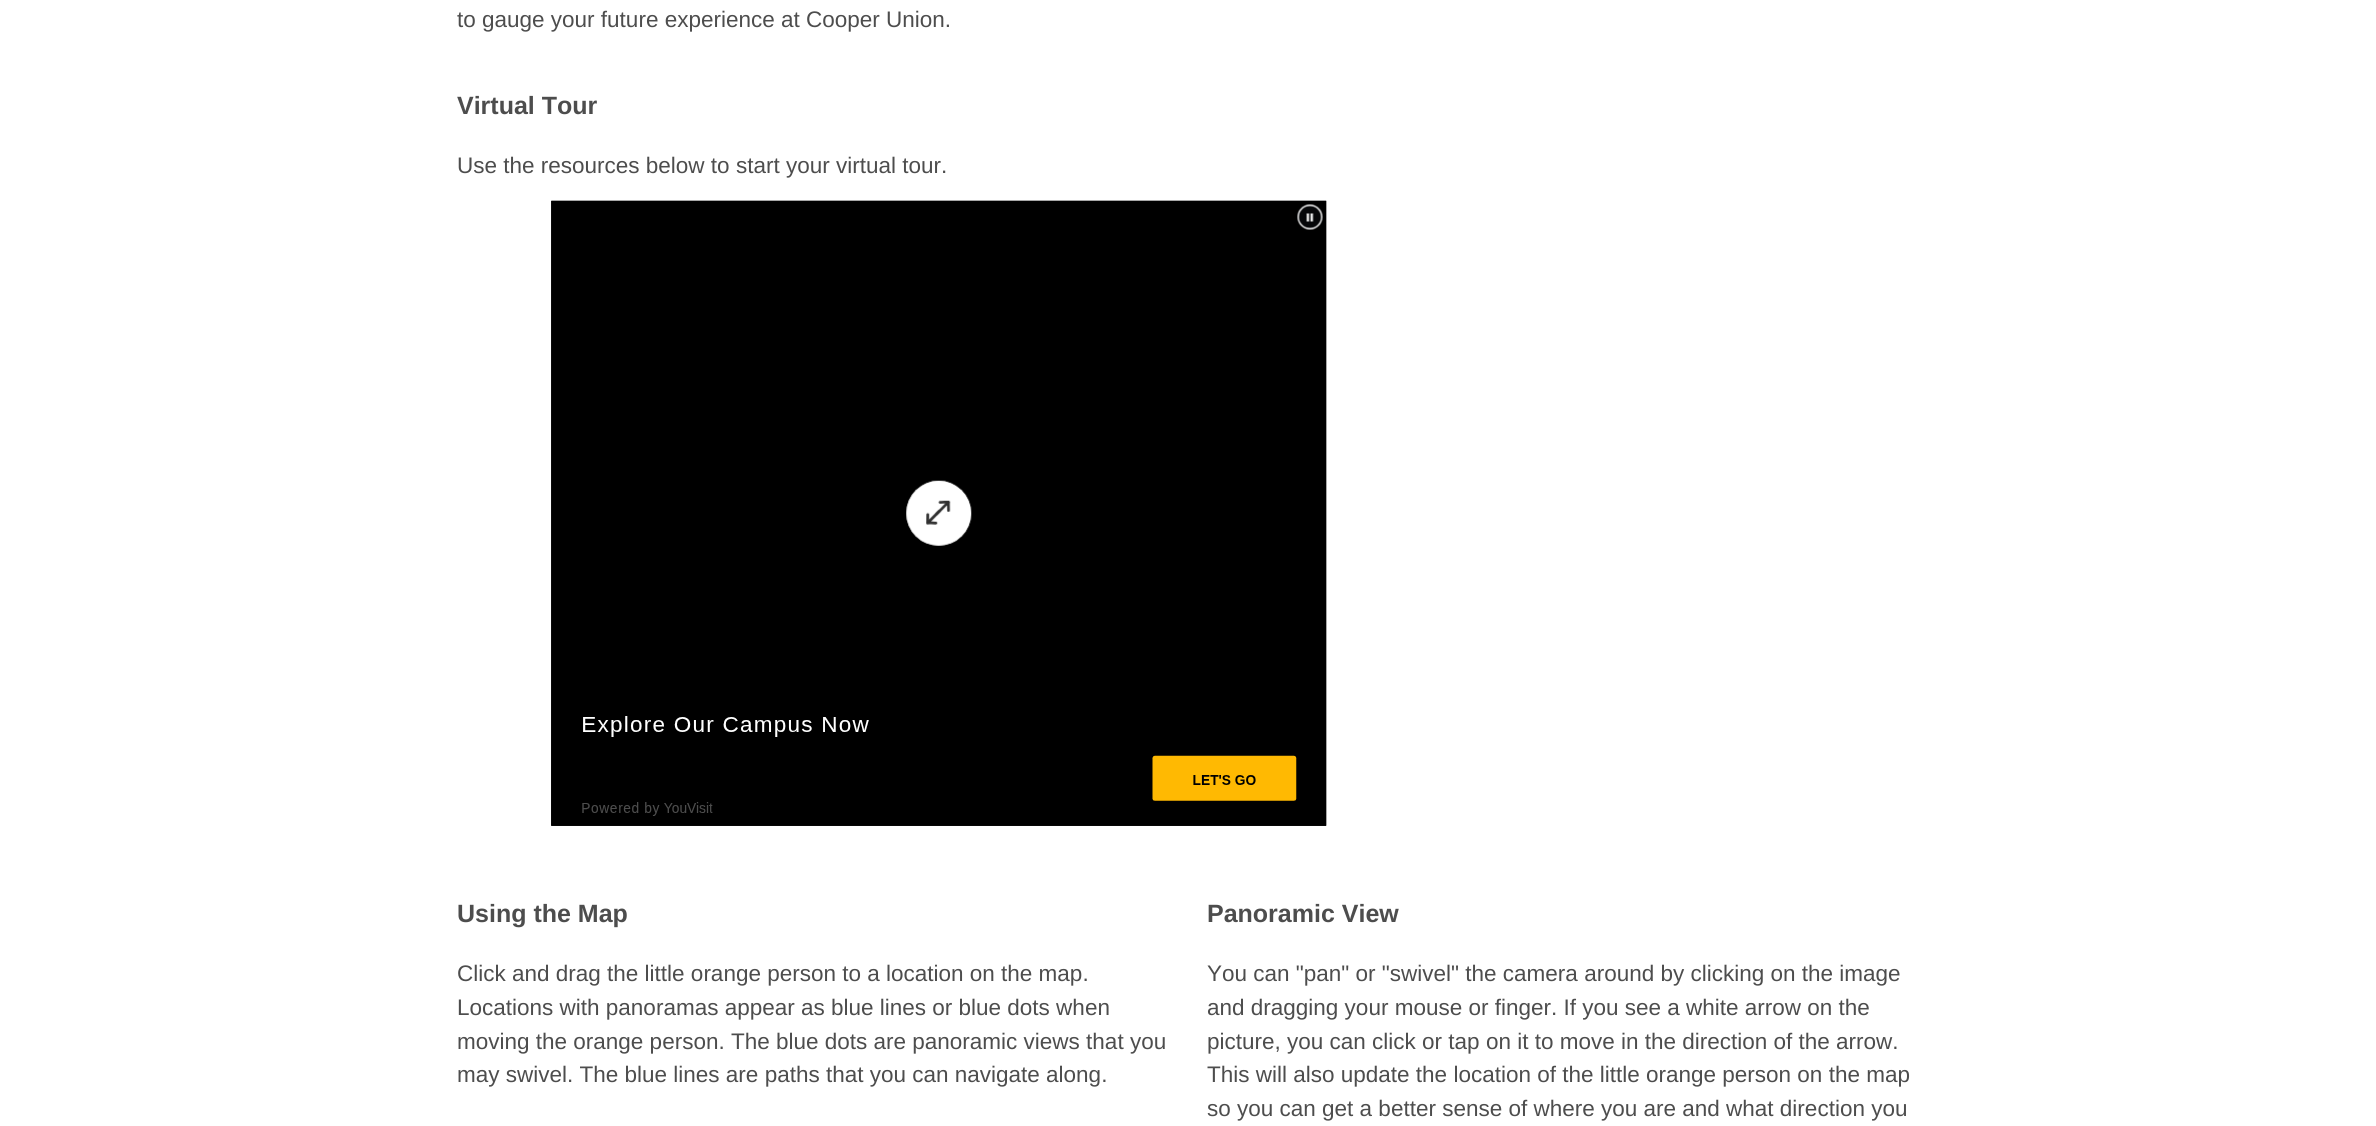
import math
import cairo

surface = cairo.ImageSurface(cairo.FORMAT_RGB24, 2376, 1126)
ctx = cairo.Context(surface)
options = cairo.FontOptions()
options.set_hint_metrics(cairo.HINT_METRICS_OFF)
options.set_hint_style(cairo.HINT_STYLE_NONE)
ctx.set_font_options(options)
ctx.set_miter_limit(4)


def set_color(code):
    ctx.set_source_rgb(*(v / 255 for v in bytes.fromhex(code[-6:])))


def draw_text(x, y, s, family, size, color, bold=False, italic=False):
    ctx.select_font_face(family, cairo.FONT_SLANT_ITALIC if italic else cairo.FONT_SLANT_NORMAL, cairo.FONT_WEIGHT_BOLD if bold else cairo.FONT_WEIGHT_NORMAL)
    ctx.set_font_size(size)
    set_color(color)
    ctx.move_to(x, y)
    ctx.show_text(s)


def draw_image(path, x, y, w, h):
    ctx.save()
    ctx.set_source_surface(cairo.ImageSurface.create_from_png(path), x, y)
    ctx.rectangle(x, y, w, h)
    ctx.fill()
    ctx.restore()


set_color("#ffffff")
ctx.paint()
draw_text(457, 27, "to gauge your future experience at Cooper Union.", "Liberation Sans", 22.5, "#4d4d4d")
draw_text(457, 114, "Virtual Tour", "Liberation Sans", 25, "#4d4d4d", bold=True)
draw_text(457, 173, "Use the resources below to start your virtual tour.", "Liberation Sans", 22.5, "#4d4d4d")
draw_image("assets/img1.png", 551, 200, 776, 626)
draw_text(457, 922, "Using the Map", "Liberation Sans", 25, "#4d4d4d", bold=True)
draw_text(457, 981, "Click and drag the little orange person to a location on the map.", "Liberation Sans", 22.5, "#4d4d4d")
draw_text(457, 1015, "Locations with panoramas appear as blue lines or blue dots when", "Liberation Sans", 22.5, "#4d4d4d")
draw_text(457, 1049, "moving the orange person. The blue dots are panoramic views that you", "Liberation Sans", 22.5, "#4d4d4d")
draw_text(457, 1082, "may swivel. The blue lines are paths that you can navigate along.", "Liberation Sans", 22.5, "#4d4d4d")
draw_text(1207, 922, "Panoramic View", "Liberation Sans", 25, "#4d4d4d", bold=True)
draw_text(1207, 981, "You can \"pan\" or \"swivel\" the camera around by clicking on the image", "Liberation Sans", 22.5, "#4d4d4d")
draw_text(1207, 1015, "and dragging your mouse or finger. If you see a white arrow on the", "Liberation Sans", 22.5, "#4d4d4d")
draw_text(1207, 1049, "picture, you can click or tap on it to move in the direction of the arrow.", "Liberation Sans", 22.5, "#4d4d4d")
draw_text(1207, 1082, "This will also update the location of the little orange person on the map", "Liberation Sans", 22.5, "#4d4d4d")
draw_text(1207, 1116, "so you can get a better sense of where you are and what direction you", "Liberation Sans", 22.5, "#4d4d4d")
surface.write_to_png("output.png")
